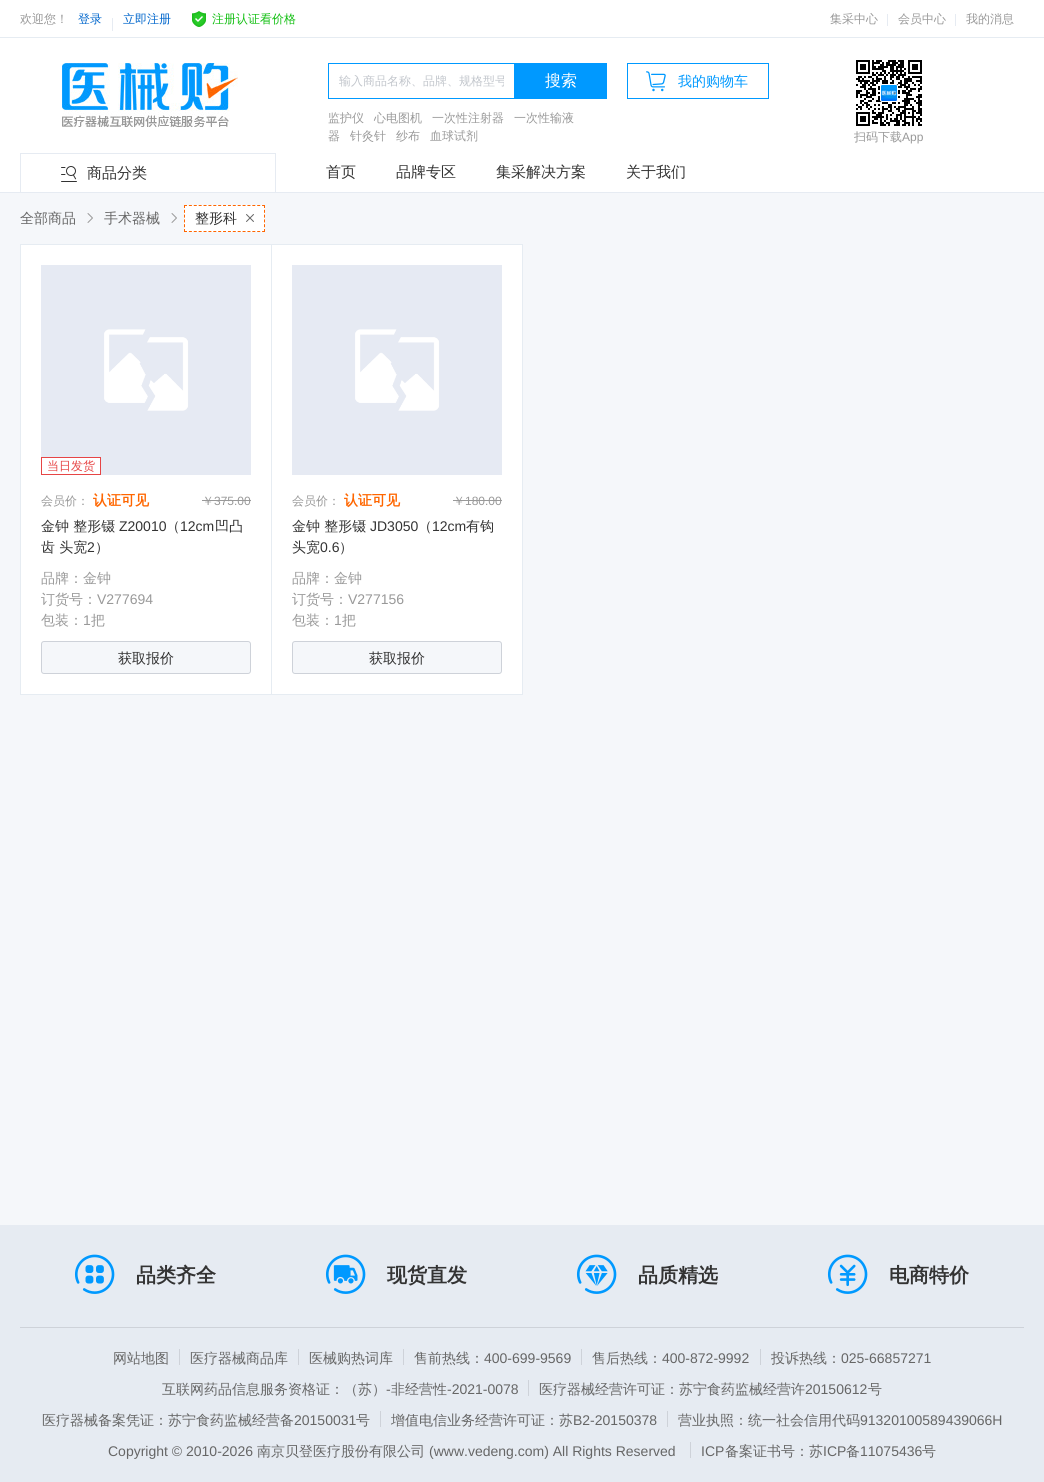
import math
import cairo

surface = cairo.ImageSurface(cairo.FORMAT_RGB24, 1044, 1482)
ctx = cairo.Context(surface)
options = cairo.FontOptions()
options.set_hint_metrics(cairo.HINT_METRICS_OFF)
options.set_hint_style(cairo.HINT_STYLE_NONE)
ctx.set_font_options(options)
ctx.set_miter_limit(4)


def set_color(code):
    ctx.set_source_rgb(*(v / 255 for v in bytes.fromhex(code[-6:])))


def draw_text(x, y, s, family, size, color, bold=False, italic=False):
    ctx.select_font_face(family, cairo.FONT_SLANT_ITALIC if italic else cairo.FONT_SLANT_NORMAL, cairo.FONT_WEIGHT_BOLD if bold else cairo.FONT_WEIGHT_NORMAL)
    ctx.set_font_size(size)
    set_color(color)
    ctx.move_to(x, y)
    ctx.show_text(s)


def fill_rect(x, y, w, h, color):
    set_color(color)
    ctx.rectangle(x, y, w, h)
    ctx.fill()


def rounded_rect(x, y, w, h, r):
    ctx.new_sub_path()
    for i, (u, v) in enumerate([(x + w - r, y + h - r), (x + r, y + h - r), (x + r, y + r), (x + w - r, y + r)]):
        ctx.arc(u, v, r, i * math.pi / 2, (i + 1) * math.pi / 2)
    ctx.close_path()


def draw_image(path, x, y, w, h):
    ctx.save()
    ctx.set_source_surface(cairo.ImageSurface.create_from_png(path), x, y)
    ctx.rectangle(x, y, w, h)
    ctx.fill()
    ctx.restore()


set_color("#f5f7fa")
ctx.paint()
fill_rect(0, 0, 1044, 192, "#ffffff")
fill_rect(0, 37, 1044, 1, "#e6ecf2")
draw_text(20, 23, "欢迎您！", "WenQuanYi Zen Hei Medium", 12, "#999999")
draw_text(78, 23, "登录", "WenQuanYi Zen Hei Medium", 12, "#0066cc")
fill_rect(112, 18, 1, 13, "#e6ebf2")
draw_text(123, 23, "立即注册", "WenQuanYi Zen Hei Medium", 12, "#0066cc")
draw_image("assets/img1.png", 192, 11, 14, 16)
draw_text(212, 23, "注册认证看价格", "WenQuanYi Zen Hei Medium", 12, "#13bf13")
draw_text(830, 23, "集采中心", "WenQuanYi Zen Hei Medium", 12, "#999999")
fill_rect(887, 14, 1, 12, "#e6ebf2")
draw_text(898, 23, "会员中心", "WenQuanYi Zen Hei Medium", 12, "#999999")
fill_rect(955, 14, 1, 12, "#e6ebf2")
draw_text(966, 23, "我的消息", "WenQuanYi Zen Hei Medium", 12, "#999999")
draw_image("assets/img2.png", 62, 63, 176, 64)
fill_rect(328, 63, 186, 1, "#0099ff")
fill_rect(328, 98, 186, 1, "#0099ff")
fill_rect(328, 63, 1, 36, "#0099ff")
ctx.save()
ctx.rectangle(339, 73, 165, 17)
ctx.clip()
draw_text(339, 85, "输入商品名称、品牌、规格型号", "WenQuanYi Zen Hei Medium", 12, "#c2c6cc")
ctx.restore()
fill_rect(514, 63, 93, 36, "#0099ff")
draw_text(545, 86, "搜索", "WenQuanYi Zen Hei Medium", 16, "#ffffff")
draw_text(328, 122, "监护仪", "WenQuanYi Zen Hei Medium", 12, "#999999")
draw_text(374, 122, "心电图机", "WenQuanYi Zen Hei Medium", 12, "#999999")
draw_text(432, 122, "一次性注射器", "WenQuanYi Zen Hei Medium", 12, "#999999")
draw_text(514, 122, "一次性输液", "WenQuanYi Zen Hei Medium", 12, "#999999")
draw_text(328, 140, "器", "WenQuanYi Zen Hei Medium", 12, "#999999")
draw_text(350, 140, "针灸针", "WenQuanYi Zen Hei Medium", 12, "#999999")
draw_text(396, 140, "纱布", "WenQuanYi Zen Hei Medium", 12, "#999999")
draw_text(430, 140, "血球试剂", "WenQuanYi Zen Hei Medium", 12, "#999999")
ctx.rectangle(627.5, 63.5, 141, 35)
set_color("#0099ff")
ctx.set_line_width(1)
ctx.stroke()
draw_image("assets/img3.png", 646, 71, 20, 21)
draw_text(678, 86, "我的购物车", "WenQuanYi Zen Hei Medium", 14, "#0099ff")
draw_image("assets/img4.png", 856, 60, 66, 66)
draw_text(854, 141, "扫码下载", "WenQuanYi Zen Hei Medium", 12, "#999999")
draw_text(902, 141, "App", "Liberation Sans", 12, "#999999")
fill_rect(0, 192, 1044, 1, "#e6ebf2")
fill_rect(20, 153, 256, 1, "#e6ebf2")
fill_rect(275, 153, 1, 40, "#e6ebf2")
fill_rect(20, 153, 1, 40, "#e6ebf2")
draw_image("assets/img5.png", 61, 166, 16, 16)
draw_text(87, 178, "商品分类", "WenQuanYi Zen Hei Medium", 15, "#333333")
draw_text(326, 177, "首页", "WenQuanYi Zen Hei Medium", 15, "#333333")
draw_text(396, 177, "品牌专区", "WenQuanYi Zen Hei Medium", 15, "#333333")
draw_text(496, 177, "集采解决方案", "WenQuanYi Zen Hei Medium", 15, "#333333")
draw_text(626, 177, "关于我们", "WenQuanYi Zen Hei Medium", 15, "#333333")
draw_text(20, 223, "全部商品", "WenQuanYi Zen Hei Medium", 14, "#666666")
draw_image("assets/img6.png", 87, 213, 6, 10)
draw_text(104, 223, "手术器械", "WenQuanYi Zen Hei Medium", 14, "#666666")
draw_image("assets/img6.png", 171, 213, 6, 10)
fill_rect(184, 205, 81, 27, "#ffffff")
ctx.new_path()
ctx.move_to(184, 205.5)
ctx.line_to(265, 205.5)
set_color("#ff6600")
ctx.set_dash([3, 1.88])
ctx.stroke()
ctx.new_path()
ctx.move_to(264.5, 205)
ctx.line_to(264.5, 232)
ctx.set_dash([3, 1.8])
ctx.stroke()
ctx.new_path()
ctx.move_to(184, 231.5)
ctx.line_to(265, 231.5)
ctx.set_dash([3, 1.88])
ctx.stroke()
ctx.new_path()
ctx.move_to(184.5, 205)
ctx.line_to(184.5, 232)
ctx.set_dash([3, 1.8])
ctx.stroke()
draw_text(195, 223, "整形科", "WenQuanYi Zen Hei Medium", 14, "#333333")
draw_image("assets/img7.png", 246, 214, 8, 8)
set_color("#ffffff")
ctx.rectangle(20.5, 244.5, 251, 450)
ctx.fill_preserve()
set_color("#e6ecf2")
ctx.set_dash([])
ctx.stroke()
draw_image("assets/img8.png", 41, 265, 210, 210)
set_color("#ffffff")
ctx.rectangle(41.5, 457.5, 59, 17)
ctx.fill_preserve()
set_color("#e64545")
ctx.stroke()
draw_text(47, 470, "当日发货", "WenQuanYi Zen Hei Medium", 12, "#e64545")
draw_text(41, 505, "会员价：", "WenQuanYi Zen Hei Medium", 12, "#999999")
draw_text(93, 505, "认证可见", "WenQuanYi Zen Hei", 14, "#ff6600", bold=True)
draw_text(202, 505, "￥", "WenQuanYi Zen Hei Medium", 12, "#999999")
fill_rect(202, 500, 49, 1, "#999999")
draw_text(214, 505, "375.00", "Liberation Sans", 12, "#999999")
draw_text(41, 531, "金钟 整形镊", "WenQuanYi Zen Hei Medium", 14, "#333333")
draw_text(119, 531, "Z20010", "Liberation Sans", 14, "#333333")
draw_text(166, 531, "（", "WenQuanYi Zen Hei Medium", 14, "#333333")
draw_text(180, 531, "12cm", "Liberation Sans", 14, "#333333")
draw_text(215, 531, "凹凸", "WenQuanYi Zen Hei Medium", 14, "#333333")
draw_text(41, 552, "齿 头宽", "WenQuanYi Zen Hei Medium", 14, "#333333")
draw_text(87, 552, "2", "Liberation Sans", 14, "#333333")
draw_text(95, 552, "）", "WenQuanYi Zen Hei Medium", 14, "#333333")
draw_text(41, 583, "品牌：金钟", "WenQuanYi Zen Hei Medium", 14, "#999999")
draw_text(41, 604, "订货号：", "WenQuanYi Zen Hei Medium", 14, "#999999")
draw_text(97, 604, "V277694", "Liberation Sans", 14, "#999999")
draw_text(41, 625, "包装：", "WenQuanYi Zen Hei Medium", 14, "#999999")
draw_text(83, 625, "1", "Liberation Sans", 14, "#999999")
draw_text(91, 625, "把", "WenQuanYi Zen Hei Medium", 14, "#999999")
set_color("#f5f7fa")
rounded_rect(41.5, 641.5, 209, 32, 2.5)
ctx.fill_preserve()
set_color("#ced2d9")
ctx.stroke()
draw_text(118, 663, "获取报价", "WenQuanYi Zen Hei Medium", 14, "#333333")
set_color("#ffffff")
ctx.rectangle(271.5, 244.5, 251, 450)
ctx.fill_preserve()
set_color("#e6ecf2")
ctx.stroke()
draw_image("assets/img9.png", 292, 265, 210, 210)
draw_text(292, 505, "会员价：", "WenQuanYi Zen Hei Medium", 12, "#999999")
draw_text(344, 505, "认证可见", "WenQuanYi Zen Hei", 14, "#ff6600", bold=True)
draw_text(453, 505, "￥", "WenQuanYi Zen Hei Medium", 12, "#999999")
fill_rect(453, 500, 49, 1, "#999999")
draw_text(465, 505, "180.00", "Liberation Sans", 12, "#999999")
draw_text(292, 531, "金钟 整形镊", "WenQuanYi Zen Hei Medium", 14, "#333333")
draw_text(370, 531, "JD3050", "Liberation Sans", 14, "#333333")
draw_text(418, 531, "（", "WenQuanYi Zen Hei Medium", 14, "#333333")
draw_text(432, 531, "12cm", "Liberation Sans", 14, "#333333")
draw_text(466, 531, "有钩", "WenQuanYi Zen Hei Medium", 14, "#333333")
draw_text(292, 552, "头宽", "WenQuanYi Zen Hei Medium", 14, "#333333")
draw_text(320, 552, "0.6", "Liberation Sans", 14, "#333333")
draw_text(339, 552, "）", "WenQuanYi Zen Hei Medium", 14, "#333333")
draw_text(292, 583, "品牌：金钟", "WenQuanYi Zen Hei Medium", 14, "#999999")
draw_text(292, 604, "订货号：", "WenQuanYi Zen Hei Medium", 14, "#999999")
draw_text(348, 604, "V277156", "Liberation Sans", 14, "#999999")
draw_text(292, 625, "包装：", "WenQuanYi Zen Hei Medium", 14, "#999999")
draw_text(334, 625, "1", "Liberation Sans", 14, "#999999")
draw_text(342, 625, "把", "WenQuanYi Zen Hei Medium", 14, "#999999")
set_color("#f5f7fa")
rounded_rect(292.5, 641.5, 209, 32, 2.5)
ctx.fill_preserve()
set_color("#ced2d9")
ctx.stroke()
draw_text(369, 663, "获取报价", "WenQuanYi Zen Hei Medium", 14, "#333333")
fill_rect(0, 1225, 1044, 257, "#e6ebf2")
fill_rect(20, 1327, 1004, 1, "#ced2d9")
draw_image("assets/img10.png", 74, 1254, 41, 40)
draw_text(136, 1282, "品类齐全", "WenQuanYi Zen Hei", 20, "#333333", bold=True)
draw_image("assets/img11.png", 325, 1254, 41, 40)
draw_text(387, 1282, "现货直发", "WenQuanYi Zen Hei", 20, "#333333", bold=True)
draw_image("assets/img12.png", 576, 1254, 41, 40)
draw_text(638, 1282, "品质精选", "WenQuanYi Zen Hei", 20, "#333333", bold=True)
draw_image("assets/img13.png", 827, 1254, 41, 40)
draw_text(889, 1282, "电商特价", "WenQuanYi Zen Hei", 20, "#333333", bold=True)
draw_text(113, 1363, "网站地图", "WenQuanYi Zen Hei Medium", 14, "#666666")
fill_rect(179, 1349, 1, 16, "#ced2d9")
draw_text(190, 1363, "医疗器械商品库", "WenQuanYi Zen Hei Medium", 14, "#666666")
fill_rect(298, 1349, 1, 16, "#ced2d9")
draw_text(309, 1363, "医械购热词库", "WenQuanYi Zen Hei Medium", 14, "#666666")
fill_rect(403, 1349, 1, 16, "#ced2d9")
draw_text(414, 1363, "售前热线：", "WenQuanYi Zen Hei Medium", 14, "#666666")
draw_text(484, 1363, "400-699-9569", "Liberation Sans", 14, "#666666")
fill_rect(581, 1349, 1, 16, "#ced2d9")
draw_text(592, 1363, "售后热线：", "WenQuanYi Zen Hei Medium", 14, "#666666")
draw_text(662, 1363, "400-872-9992", "Liberation Sans", 14, "#666666")
fill_rect(760, 1349, 1, 16, "#ced2d9")
draw_text(771, 1363, "投诉热线：", "WenQuanYi Zen Hei Medium", 14, "#666666")
draw_text(841, 1363, "025-66857271", "Liberation Sans", 14, "#666666")
draw_text(162, 1394, "互联网药品信息服务资格证：（苏）", "WenQuanYi Zen Hei Medium", 14, "#666666")
draw_text(386, 1394, "-", "Liberation Sans", 14, "#666666")
draw_text(391, 1394, "非经营性", "WenQuanYi Zen Hei Medium", 14, "#666666")
draw_text(447, 1394, "-2021-0078", "Liberation Sans", 14, "#666666")
fill_rect(528, 1380, 1, 16, "#ced2d9")
draw_text(539, 1394, "医疗器械经营许可证：苏宁食药监械经营许", "WenQuanYi Zen Hei Medium", 14, "#666666")
draw_text(805, 1394, "20150612", "Liberation Sans", 14, "#666666")
draw_text(868, 1394, "号", "WenQuanYi Zen Hei Medium", 14, "#666666")
draw_text(42, 1425, "医疗器械备案凭证：苏宁食药监械经营备", "WenQuanYi Zen Hei Medium", 14, "#666666")
draw_text(294, 1425, "20150031", "Liberation Sans", 14, "#666666")
draw_text(356, 1425, "号", "WenQuanYi Zen Hei Medium", 14, "#666666")
fill_rect(380, 1411, 1, 16, "#ced2d9")
draw_text(391, 1425, "增值电信业务经营许可证：苏", "WenQuanYi Zen Hei Medium", 14, "#666666")
draw_text(573, 1425, "B2-20150378", "Liberation Sans", 14, "#666666")
fill_rect(667, 1411, 1, 16, "#ced2d9")
draw_text(678, 1425, "营业执照：统一社会信用代码", "WenQuanYi Zen Hei Medium", 14, "#666666")
draw_text(860, 1425, "91320100589439066H", "Liberation Sans", 14, "#666666")
draw_text(108, 1456, "Copyright © 2010-2026", "Liberation Sans", 14, "#666666")
draw_text(257, 1456, "南京贝登医疗股份有限公司", "WenQuanYi Zen Hei Medium", 14, "#666666")
draw_text(429, 1456, "(www.vedeng.com) All Rights Reserved", "Liberation Sans", 14, "#666666")
fill_rect(690, 1442, 1, 16, "#ced2d9")
draw_text(701, 1456, "ICP", "Liberation Sans", 14, "#666666")
draw_text(725, 1456, "备案证书号：苏", "WenQuanYi Zen Hei Medium", 14, "#666666")
draw_text(823, 1456, "ICP", "Liberation Sans", 14, "#666666")
draw_text(846, 1456, "备", "WenQuanYi Zen Hei Medium", 14, "#666666")
draw_text(860, 1456, "11075436", "Liberation Sans", 14, "#666666")
draw_text(922, 1456, "号", "WenQuanYi Zen Hei Medium", 14, "#666666")
surface.write_to_png("output.png")
